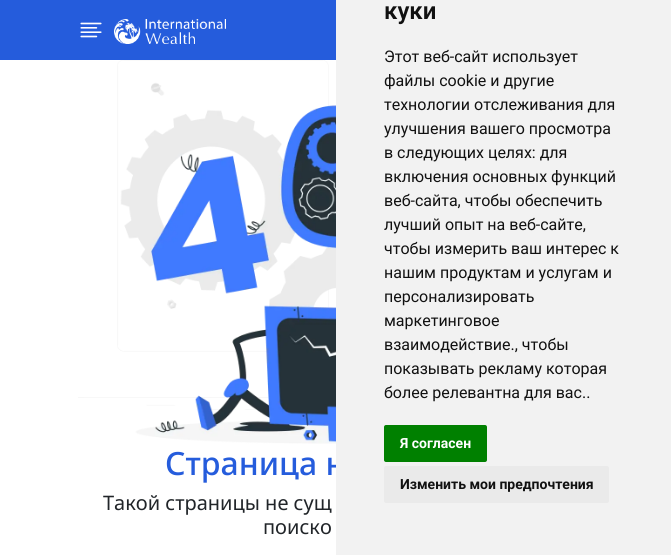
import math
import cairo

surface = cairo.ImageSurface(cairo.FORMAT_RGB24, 671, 555)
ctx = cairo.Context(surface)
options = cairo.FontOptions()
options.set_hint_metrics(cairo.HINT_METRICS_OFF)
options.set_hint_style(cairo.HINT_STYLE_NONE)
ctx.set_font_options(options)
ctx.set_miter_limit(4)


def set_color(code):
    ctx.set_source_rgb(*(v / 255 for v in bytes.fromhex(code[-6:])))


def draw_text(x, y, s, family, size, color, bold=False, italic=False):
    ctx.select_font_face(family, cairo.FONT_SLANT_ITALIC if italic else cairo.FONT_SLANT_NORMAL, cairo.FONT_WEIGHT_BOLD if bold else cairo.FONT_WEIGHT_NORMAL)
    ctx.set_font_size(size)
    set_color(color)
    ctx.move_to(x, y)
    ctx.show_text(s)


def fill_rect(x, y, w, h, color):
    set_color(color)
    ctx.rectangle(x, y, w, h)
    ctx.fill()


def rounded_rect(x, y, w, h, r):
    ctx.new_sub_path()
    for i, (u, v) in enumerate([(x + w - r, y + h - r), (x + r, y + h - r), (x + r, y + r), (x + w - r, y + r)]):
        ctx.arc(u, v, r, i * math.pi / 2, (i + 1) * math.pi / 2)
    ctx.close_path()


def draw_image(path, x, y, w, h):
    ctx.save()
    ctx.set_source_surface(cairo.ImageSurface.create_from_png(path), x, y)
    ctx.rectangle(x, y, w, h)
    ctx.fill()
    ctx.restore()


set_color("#ffffff")
ctx.paint()
fill_rect(0, 0, 336, 60, "#255cdc")
draw_image("assets/img1.png", 80, 22, 22, 16)
draw_image("assets/img2.png", 114, 19, 112, 25)
draw_text(165, 475, "Страница н", "Noto Sans Medium", 32, "#255cdc")
fill_rect(336, 0, 335, 555, "#f2f2f2")
draw_text(384, 19, "куки", "Roboto SemiBold", 24, "#111111")
draw_text(384, 62, "Этот веб-сайт использует", "Roboto", 16, "#111111")
draw_text(384, 86, "файлы cookie и другие", "Roboto", 16, "#111111")
draw_text(384, 110, "технологии отслеживания для", "Roboto", 16, "#111111")
draw_text(384, 134, "улучшения вашего просмотра", "Roboto", 16, "#111111")
draw_text(384, 158, "в следующих целях: для", "Roboto", 16, "#111111")
draw_text(384, 182, "включения основных функций", "Roboto", 16, "#111111")
draw_text(384, 206, "веб-сайта, чтобы обеспечить", "Roboto", 16, "#111111")
draw_text(384, 230, "лучший опыт на веб-сайте,", "Roboto", 16, "#111111")
draw_text(384, 254, "чтобы измерить ваш интерес к", "Roboto", 16, "#111111")
draw_text(384, 278, "нашим продуктам и услугам и", "Roboto", 16, "#111111")
draw_text(384, 302, "персонализировать", "Roboto", 16, "#111111")
draw_text(384, 326, "маркетинговое", "Roboto", 16, "#111111")
draw_text(384, 350, "взаимодействие., чтобы", "Roboto", 16, "#111111")
draw_text(384, 374, "показывать рекламу которая", "Roboto", 16, "#111111")
draw_text(384, 398, "более релевантна для вас..", "Roboto", 16, "#111111")
set_color("#008000")
rounded_rect(384, 425, 103, 37, 2)
ctx.fill()
draw_text(400, 448, "Я согласен", "Roboto", 14, "#ffffff", bold=True)
set_color("#eaeaea")
rounded_rect(384, 466, 225, 37, 2)
ctx.fill()
draw_text(400, 489, "Изменить мои предпочтения", "Roboto", 14, "#111111", bold=True)
draw_image("assets/img3.png", 78, 60, 258, 384)
draw_text(103, 510, "Такой страницы не сущ", "Noto Sans", 20, "#212529")
draw_text(263, 534, "поиско", "Noto Sans", 20, "#212529")
surface.write_to_png("output.png")
